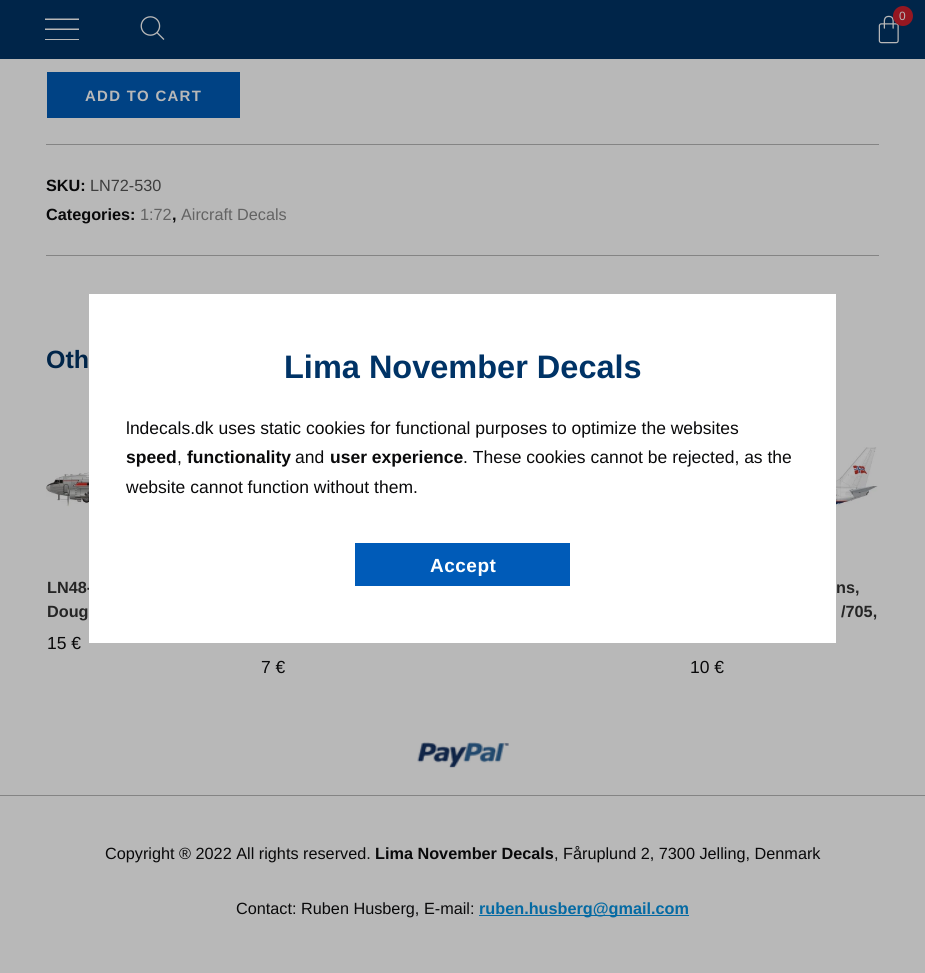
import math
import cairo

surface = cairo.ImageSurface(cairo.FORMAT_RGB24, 925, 973)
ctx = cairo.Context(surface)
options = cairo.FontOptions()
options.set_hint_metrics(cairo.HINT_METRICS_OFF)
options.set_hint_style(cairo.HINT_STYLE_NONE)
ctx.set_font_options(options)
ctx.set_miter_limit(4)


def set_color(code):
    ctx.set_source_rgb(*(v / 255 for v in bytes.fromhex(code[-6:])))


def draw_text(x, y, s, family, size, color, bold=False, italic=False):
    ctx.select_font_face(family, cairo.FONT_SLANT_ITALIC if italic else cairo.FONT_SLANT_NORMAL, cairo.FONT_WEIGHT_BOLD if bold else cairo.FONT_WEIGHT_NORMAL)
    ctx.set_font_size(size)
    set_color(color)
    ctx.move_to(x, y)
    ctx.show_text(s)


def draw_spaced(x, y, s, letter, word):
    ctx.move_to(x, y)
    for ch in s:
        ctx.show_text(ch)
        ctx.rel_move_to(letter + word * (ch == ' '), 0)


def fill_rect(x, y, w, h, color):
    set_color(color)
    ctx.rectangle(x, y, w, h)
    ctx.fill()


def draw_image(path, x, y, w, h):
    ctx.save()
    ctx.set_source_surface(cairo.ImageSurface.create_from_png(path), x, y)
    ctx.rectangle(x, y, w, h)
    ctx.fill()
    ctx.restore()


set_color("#b8b8b8")
ctx.paint()
fill_rect(0, 0, 925, 59, "#002549")
set_color("#b8b8b8")
ctx.new_path()
ctx.move_to(45, 18.5)
ctx.line_to(45, 20)
ctx.line_to(79, 20)
ctx.line_to(79, 18.5)
ctx.close_path()
ctx.move_to(45, 28.5)
ctx.line_to(45, 30)
ctx.line_to(79, 30)
ctx.line_to(79, 28.5)
ctx.close_path()
ctx.move_to(45, 39)
ctx.line_to(45, 40)
ctx.line_to(79, 40)
ctx.line_to(79, 39)
ctx.close_path()
ctx.fill()
draw_image("assets/img1.png", 140, 16, 25, 24)
draw_image("assets/img2.png", 878, 15, 21, 29)
set_color("#951721")
ctx.arc(903, 16, 10, 0, 2 * math.pi)
ctx.fill()
draw_text(899, 20, "0", "Liberation Sans", 12, "#b8b8b8")
fill_rect(46, 144, 833, 1, "#848484")
fill_rect(47, 72, 193, 46, "#004284")
ctx.select_font_face("Liberation Sans", cairo.FONT_SLANT_NORMAL, cairo.FONT_WEIGHT_BOLD)
ctx.set_font_size(15)
set_color("#b8b8b8")
draw_spaced(85, 101, "ADD TO CART", 1.25, 0)
fill_rect(46, 255, 833, 1, "#848484")
draw_text(46, 191, "SKU:", "Liberation Sans", 16.25, "#09090a", bold=True)
draw_text(90, 191, "LN72-530", "Liberation Sans", 16.25, "#3d3d3d")
draw_text(46, 220, "Categories:", "Liberation Sans", 16.25, "#09090a", bold=True)
draw_text(140, 220, "1:72", "Liberation Sans", 16.25, "#636363")
draw_text(172, 220, ",", "Liberation Sans", 16.25, "#09090a", bold=True)
draw_text(181, 220, "Aircraft Decals", "Liberation Sans", 16.25, "#636363")
draw_text(46, 368, "Oth", "Liberation Sans", 25, "#002549", bold=True)
draw_image("assets/img3.png", 46, 453, 43, 54)
draw_text(47, 593, "LN48-", "Liberation Sans", 16.25, "#252525", bold=True)
draw_text(47, 617, "Doug", "Liberation Sans", 16.25, "#252525", bold=True)
draw_text(47, 649, "15 €", "Liberation Sans", 17.5, "#09090a")
draw_text(261, 673, "7 €", "Liberation Sans", 17.5, "#09090a")
draw_image("assets/img4.png", 836, 447, 42, 68)
draw_text(836, 593, "ns,", "Liberation Sans", 16.25, "#252525", bold=True)
draw_text(841, 617, "/705,", "Liberation Sans", 16.25, "#252525", bold=True)
draw_text(690, 673, "10 €", "Liberation Sans", 17.5, "#09090a")
draw_image("assets/img5.png", 417, 742, 92, 26)
fill_rect(0, 795, 925, 1, "#848484")
draw_text(105, 859, "Copyright ® 2022 All rights reserved.", "Liberation Sans", 16.25, "#09090a")
draw_text(375, 859, "Lima November Decals", "Liberation Sans", 16.25, "#09090a", bold=True)
draw_text(554, 859, ", Fåruplund 2, 7300 Jelling, Denmark", "Liberation Sans", 16.25, "#09090a")
draw_text(236, 914, "Contact: Ruben Husberg, E-mail:", "Liberation Sans", 16.25, "#09090a")
fill_rect(479, 915, 210, 1, "#046aa3")
draw_text(479, 914, "ruben.husberg@gmail.com", "Liberation Sans", 16.25, "#046aa3", bold=True)
fill_rect(89, 294, 747, 349, "#ffffff")
draw_text(284, 378, "Lima November Decals", "Liberation Sans", 32.5, "#003366", bold=True)
draw_text(126, 434, "lndecals.dk uses static cookies for functional purposes to optimize the websites", "Liberation Sans", 17.5, "#09090a")
draw_text(126, 463, "speed", "Liberation Sans", 17.5, "#09090a", bold=True)
draw_text(177, 463, ",", "Liberation Sans", 17.5, "#09090a")
draw_text(187, 463, "functionality", "Liberation Sans", 17.5, "#09090a", bold=True)
draw_text(295, 463, "and", "Liberation Sans", 17.5, "#09090a")
draw_text(330, 463, "user experience", "Liberation Sans", 17.5, "#09090a", bold=True)
draw_text(463, 463, ". These cookies cannot be rejected, as the", "Liberation Sans", 17.5, "#09090a")
draw_text(126, 493, "website cannot function without them.", "Liberation Sans", 17.5, "#09090a")
fill_rect(355, 543, 215, 43, "#005bb8")
ctx.select_font_face("Liberation Sans", cairo.FONT_SLANT_NORMAL, cairo.FONT_WEIGHT_BOLD)
ctx.set_font_size(19)
set_color("#ffffff")
draw_spaced(430, 572, "Accept", 0.5, 0)
surface.write_to_png("output.png")
